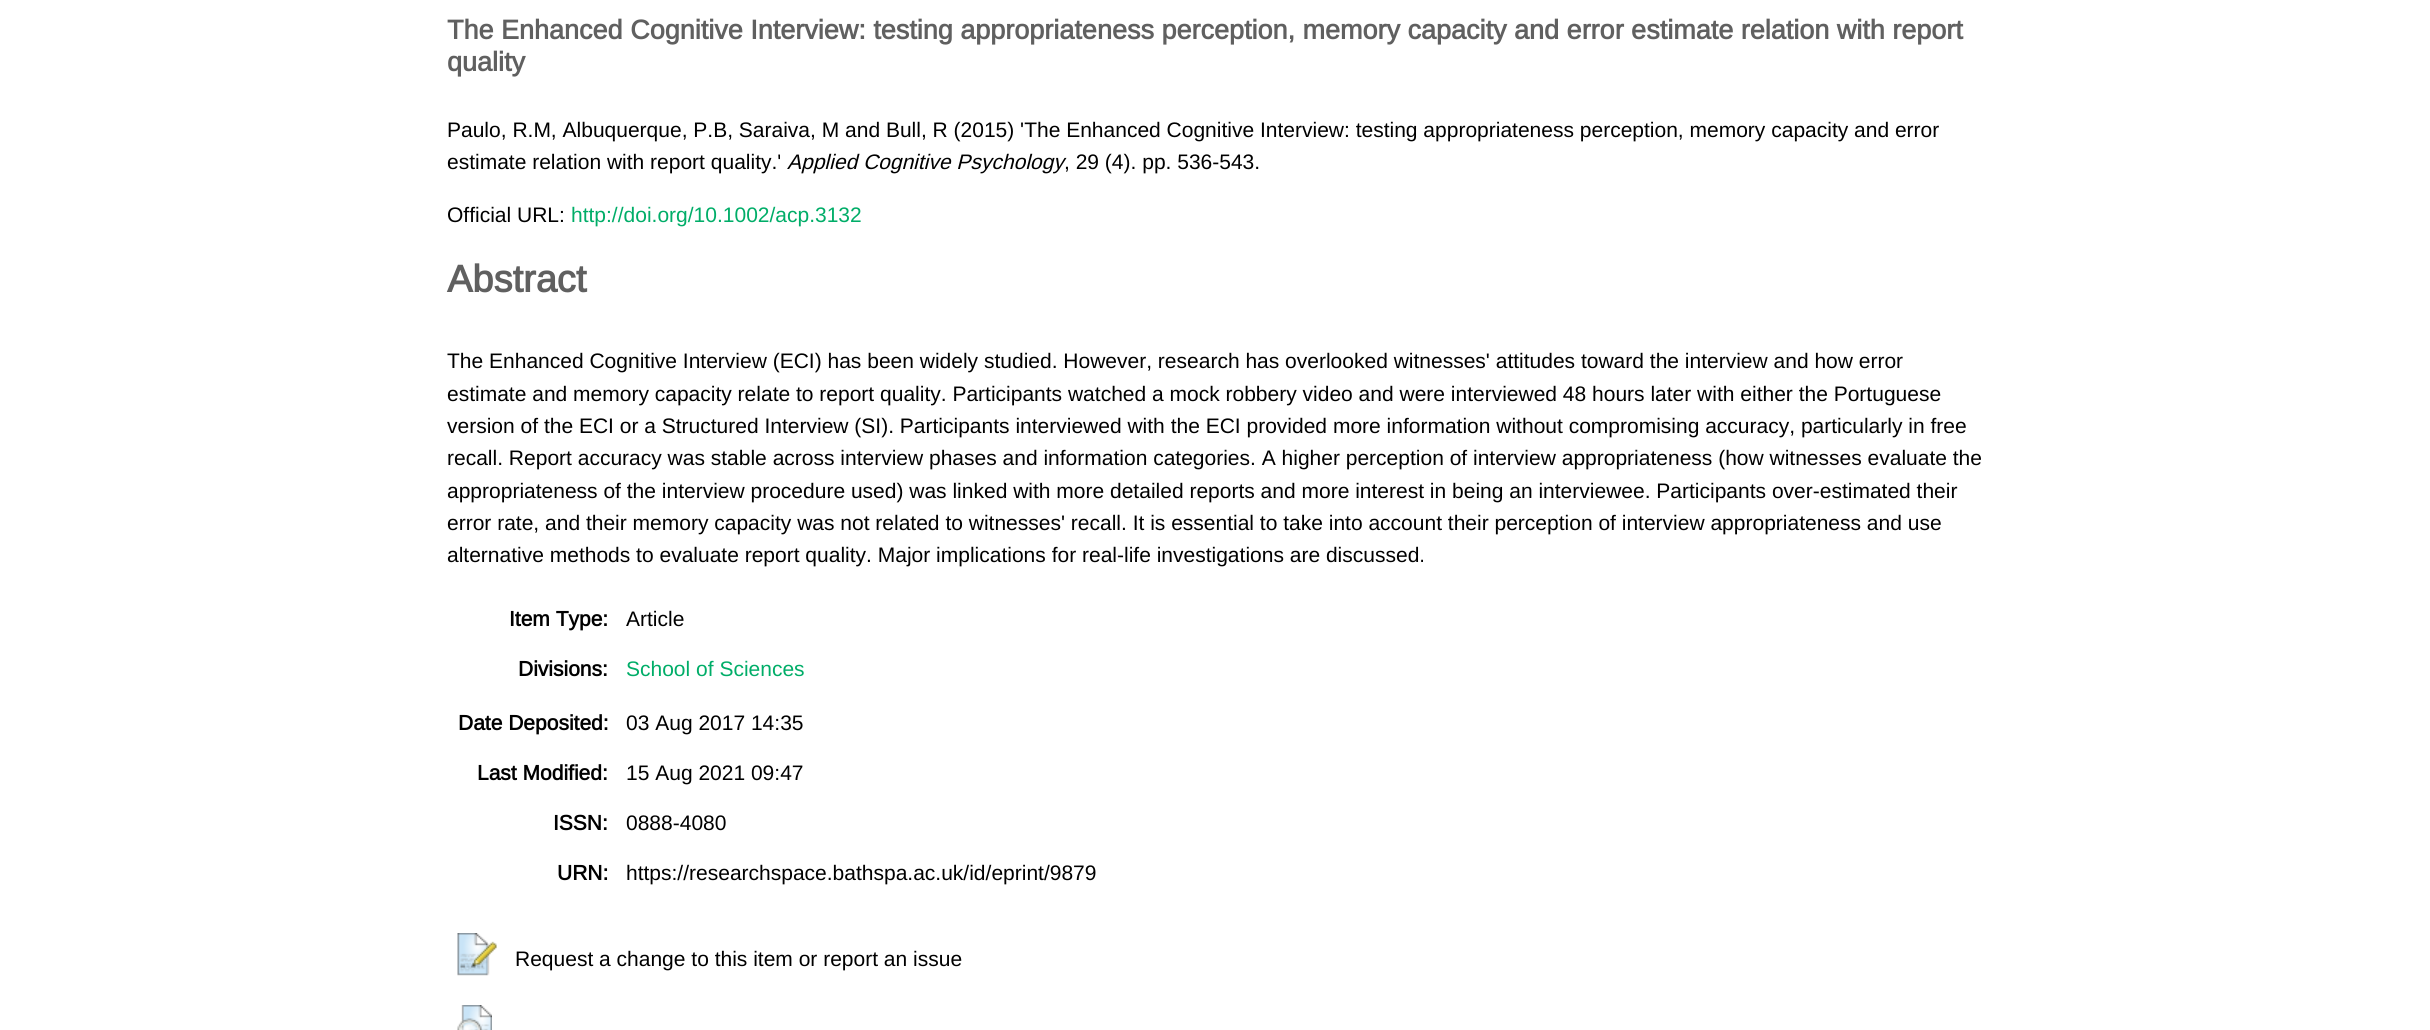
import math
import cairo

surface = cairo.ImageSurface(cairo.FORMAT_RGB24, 2430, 1030)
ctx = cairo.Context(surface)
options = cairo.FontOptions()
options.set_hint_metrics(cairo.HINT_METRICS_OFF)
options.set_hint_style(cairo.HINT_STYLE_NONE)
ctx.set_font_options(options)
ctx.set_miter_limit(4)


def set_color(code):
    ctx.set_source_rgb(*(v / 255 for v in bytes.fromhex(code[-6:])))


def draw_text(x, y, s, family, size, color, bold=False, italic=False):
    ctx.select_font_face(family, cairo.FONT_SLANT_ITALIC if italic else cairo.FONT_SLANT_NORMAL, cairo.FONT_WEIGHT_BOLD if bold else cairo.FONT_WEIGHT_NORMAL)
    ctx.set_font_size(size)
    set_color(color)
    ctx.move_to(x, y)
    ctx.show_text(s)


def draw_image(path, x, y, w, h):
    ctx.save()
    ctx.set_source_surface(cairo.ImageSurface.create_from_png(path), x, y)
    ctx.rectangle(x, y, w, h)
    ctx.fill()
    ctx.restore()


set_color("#ffffff")
ctx.paint()
draw_text(447, 39, "The Enhanced Cognitive Interview: testing appropriateness perception, memory capacity and error estimate relation with report", "Liberation Sans", 27, "#606060", bold=True)
draw_text(447, 71, "quality", "Liberation Sans", 27, "#606060", bold=True)
draw_text(447, 137, "Paulo, R.M, Albuquerque, P.B, Saraiva, M and Bull, R (2015) 'The Enhanced Cognitive Interview: testing appropriateness perception, memory capacity and error", "Liberation Sans", 21, "#000000")
draw_text(447, 169, "estimate relation with report quality.'", "Liberation Sans", 21, "#000000")
draw_text(787, 169, "Applied Cognitive Psychology", "Liberation Sans", 21, "#000000", italic=True)
draw_text(1064, 169, ", 29 (4). pp. 536-543.", "Liberation Sans", 21, "#000000")
draw_text(447, 222, "Official URL:", "Liberation Sans", 21, "#000000")
draw_text(571, 222, "http://doi.org/10.1002/acp.3132", "Liberation Sans", 21, "#00ad68")
draw_text(447, 292, "Abstract", "Liberation Sans", 38, "#606060", bold=True)
draw_text(447, 368, "The Enhanced Cognitive Interview (ECI) has been widely studied. However, research has overlooked witnesses' attitudes toward the interview and how error", "Liberation Sans", 21, "#000000")
draw_text(447, 401, "estimate and memory capacity relate to report quality. Participants watched a mock robbery video and were interviewed 48 hours later with either the Portuguese", "Liberation Sans", 21, "#000000")
draw_text(447, 433, "version of the ECI or a Structured Interview (SI). Participants interviewed with the ECI provided more information without compromising accuracy, particularly in free", "Liberation Sans", 21, "#000000")
draw_text(447, 465, "recall. Report accuracy was stable across interview phases and information categories. A higher perception of interview appropriateness (how witnesses evaluate the", "Liberation Sans", 21, "#000000")
draw_text(447, 498, "appropriateness of the interview procedure used) was linked with more detailed reports and more interest in being an interviewee. Participants over-estimated their", "Liberation Sans", 21, "#000000")
draw_text(447, 530, "error rate, and their memory capacity was not related to witnesses' recall. It is essential to take into account their perception of interview appropriateness and use", "Liberation Sans", 21, "#000000")
draw_text(447, 562, "alternative methods to evaluate report quality. Major implications for real-life investigations are discussed.", "Liberation Sans", 21, "#000000")
draw_text(509, 626, "Item Type:", "Liberation Sans", 21, "#000000", bold=True)
draw_text(626, 626, "Article", "Liberation Sans", 21, "#000000")
draw_text(518, 676, "Divisions:", "Liberation Sans", 21, "#000000", bold=True)
draw_text(626, 676, "School of Sciences", "Liberation Sans", 21, "#00ad68")
draw_text(458, 730, "Date Deposited:", "Liberation Sans", 21, "#000000", bold=True)
draw_text(626, 730, "03 Aug 2017 14:35", "Liberation Sans", 21, "#000000")
draw_text(477, 780, "Last Modified:", "Liberation Sans", 21, "#000000", bold=True)
draw_text(626, 780, "15 Aug 2021 09:47", "Liberation Sans", 21, "#000000")
draw_text(553, 830, "ISSN:", "Liberation Sans", 21, "#000000", bold=True)
draw_text(626, 830, "0888-4080", "Liberation Sans", 21, "#000000")
draw_text(557, 880, "URN:", "Liberation Sans", 21, "#000000", bold=True)
draw_text(626, 880, "https://researchspace.bathspa.ac.uk/id/eprint/9879", "Liberation Sans", 21, "#000000")
draw_image("assets/img1.png", 457, 933, 40, 43)
draw_text(515, 966, "Request a change to this item or report an issue", "Liberation Sans", 21, "#000000")
draw_image("assets/img2.png", 457, 1005, 35, 25)
surface.write_to_png("output.png")
